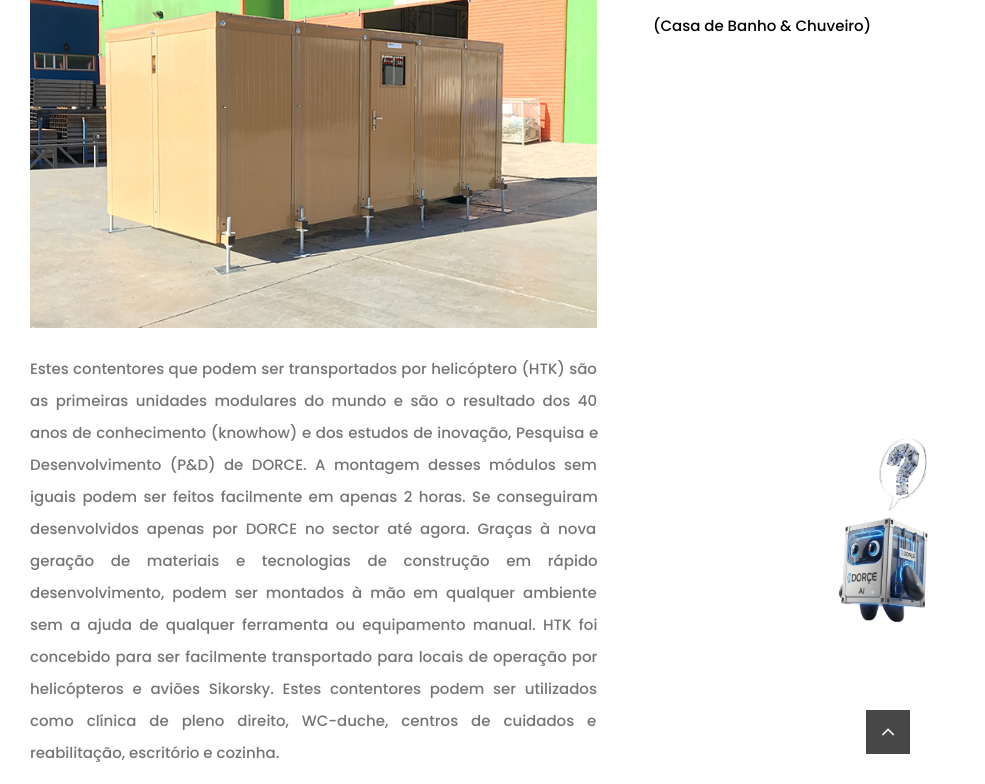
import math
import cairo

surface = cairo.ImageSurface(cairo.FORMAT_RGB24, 985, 784)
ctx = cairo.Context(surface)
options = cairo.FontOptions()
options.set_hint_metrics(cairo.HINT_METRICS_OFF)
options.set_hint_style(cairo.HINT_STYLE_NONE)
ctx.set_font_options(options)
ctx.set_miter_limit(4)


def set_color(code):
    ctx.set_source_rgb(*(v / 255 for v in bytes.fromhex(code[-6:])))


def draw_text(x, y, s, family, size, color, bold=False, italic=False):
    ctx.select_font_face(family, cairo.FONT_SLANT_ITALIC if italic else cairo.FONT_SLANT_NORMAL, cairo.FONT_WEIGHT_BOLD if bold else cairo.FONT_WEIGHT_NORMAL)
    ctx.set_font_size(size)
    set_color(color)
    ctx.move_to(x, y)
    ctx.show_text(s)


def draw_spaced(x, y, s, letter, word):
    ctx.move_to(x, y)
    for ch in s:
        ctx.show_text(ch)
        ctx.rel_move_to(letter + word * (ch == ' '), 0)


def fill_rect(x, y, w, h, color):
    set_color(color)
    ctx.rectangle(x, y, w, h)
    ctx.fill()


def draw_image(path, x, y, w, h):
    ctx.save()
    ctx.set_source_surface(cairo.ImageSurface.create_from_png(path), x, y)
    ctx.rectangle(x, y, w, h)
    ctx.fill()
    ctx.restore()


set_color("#ffffff")
ctx.paint()
draw_text(653, 31, "(Casa de Banho & Chuveiro)", "Poppins Medium", 15, "#000000")
draw_image("assets/img1.png", 30, 0, 567, 328)
set_color("#747474")
draw_spaced(30, 374, "Estes contentores que podem ser transportados por helicóptero (HTK) são", 0, 0.5)
draw_spaced(30, 406, "as primeiras unidades modulares do mundo e são o resultado dos 40", 0, 3.6)
draw_spaced(30, 438, "anos de conhecimento (knowhow) e dos estudos de inovação, Pesquisa e", 0, 0.75)
draw_spaced(30, 470, "Desenvolvimento (P&D) de DORCE. A montagem desses módulos sem", 0, 4.5)
draw_spaced(30, 502, "iguais podem ser feitos facilmente em apenas 2 horas. Se conseguiram", 0, 2.5)
draw_spaced(30, 534, "desenvolvidos apenas por DORCE no sector até agora. Graças à nova", 0, 4)
draw_spaced(30, 566, "geração de materiais e tecnologias de construção em rápido", 0, 12.75)
draw_spaced(30, 598, "desenvolvimento, podem ser montados à mão em qualquer ambiente", 0, 4)
draw_spaced(30, 630, "sem a ajuda de qualquer ferramenta ou equipamento manual. HTK foi", 0, 3.4)
draw_spaced(30, 662, "concebido para ser facilmente transportado para locais de operação por", 0, 1.25)
draw_spaced(30, 694, "helicópteros e aviões Sikorsky. Estes contentores podem ser utilizados", 0, 4.75)
draw_spaced(30, 726, "como clínica de pleno direito, WC-duche, centros de cuidados e", 0, 9)
draw_text(30, 758, "reabilitação, escritório e cozinha.", "Poppins Medium", 15, "#747474")
draw_image("assets/img2.png", 838, 438, 90, 184)
fill_rect(866, 710, 44, 44, "#474747")
draw_image("assets/img3.png", 882, 728, 13, 8)
surface.write_to_png("output.png")
